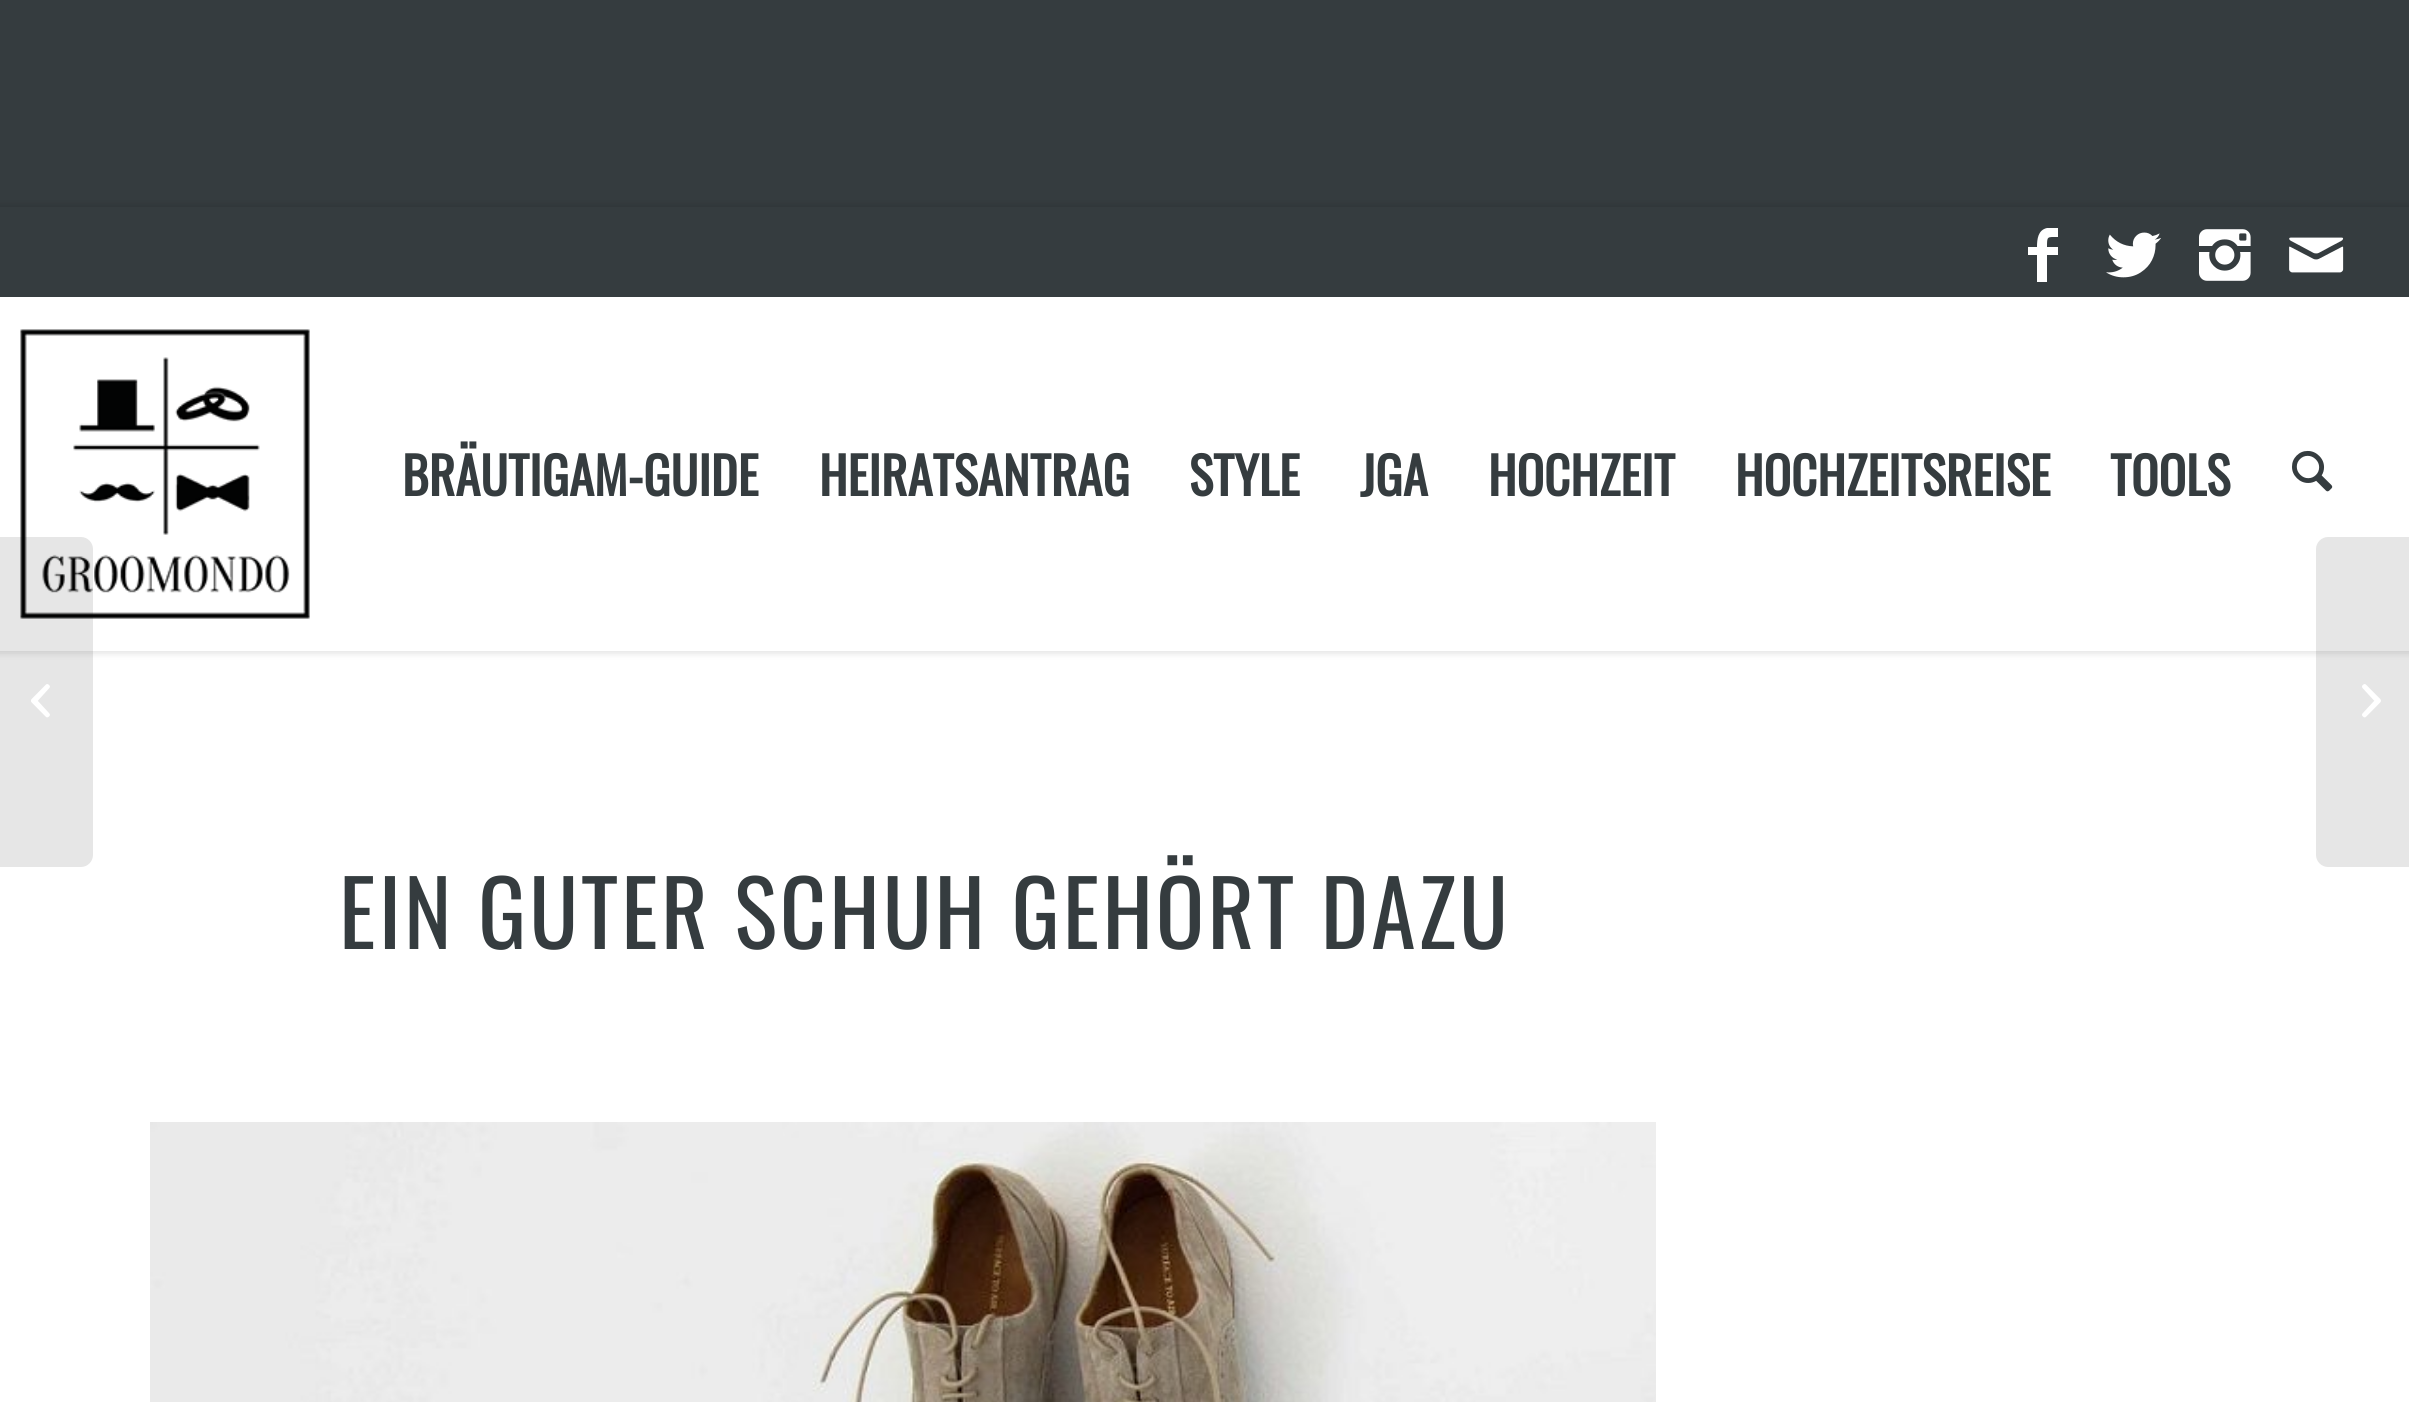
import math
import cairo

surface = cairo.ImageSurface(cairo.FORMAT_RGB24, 2409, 1402)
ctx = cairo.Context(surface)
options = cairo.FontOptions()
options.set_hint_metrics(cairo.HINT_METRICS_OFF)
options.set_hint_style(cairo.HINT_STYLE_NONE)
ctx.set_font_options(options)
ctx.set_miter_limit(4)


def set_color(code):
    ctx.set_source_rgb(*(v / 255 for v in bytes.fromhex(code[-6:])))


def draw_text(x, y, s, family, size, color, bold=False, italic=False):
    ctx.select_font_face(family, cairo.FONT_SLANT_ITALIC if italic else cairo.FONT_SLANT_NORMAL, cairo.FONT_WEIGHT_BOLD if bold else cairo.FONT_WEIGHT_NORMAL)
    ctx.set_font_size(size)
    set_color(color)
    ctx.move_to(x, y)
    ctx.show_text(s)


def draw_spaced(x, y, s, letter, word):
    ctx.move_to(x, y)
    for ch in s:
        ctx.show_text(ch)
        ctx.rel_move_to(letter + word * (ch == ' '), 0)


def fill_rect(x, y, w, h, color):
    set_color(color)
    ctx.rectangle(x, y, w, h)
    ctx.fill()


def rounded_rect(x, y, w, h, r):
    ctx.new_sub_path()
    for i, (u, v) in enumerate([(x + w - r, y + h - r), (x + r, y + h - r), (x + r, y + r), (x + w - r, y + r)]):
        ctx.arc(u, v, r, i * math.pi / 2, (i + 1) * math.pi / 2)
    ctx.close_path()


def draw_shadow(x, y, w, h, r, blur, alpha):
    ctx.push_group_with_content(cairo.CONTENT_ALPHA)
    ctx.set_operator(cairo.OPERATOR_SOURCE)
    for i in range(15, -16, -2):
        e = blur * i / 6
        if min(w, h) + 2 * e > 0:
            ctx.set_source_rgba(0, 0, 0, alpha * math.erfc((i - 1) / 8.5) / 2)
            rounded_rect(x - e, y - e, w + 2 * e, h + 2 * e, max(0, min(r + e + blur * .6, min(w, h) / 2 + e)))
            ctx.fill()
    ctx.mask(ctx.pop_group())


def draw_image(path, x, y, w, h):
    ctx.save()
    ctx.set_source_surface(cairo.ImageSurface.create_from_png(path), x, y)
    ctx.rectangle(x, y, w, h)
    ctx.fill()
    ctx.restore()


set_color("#353c3f")
ctx.paint()
fill_rect(0, 297, 2409, 1105, "#ffffff")
ctx.save()
ctx.set_fill_rule(cairo.FILL_RULE_EVEN_ODD)
ctx.new_path()
ctx.move_to(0, 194)
ctx.line_to(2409, 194)
ctx.line_to(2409, 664)
ctx.line_to(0, 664)
ctx.close_path()
ctx.move_to(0, 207)
ctx.line_to(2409, 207)
ctx.line_to(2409, 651)
ctx.line_to(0, 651)
ctx.close_path()
ctx.clip()
set_color("#000000")
draw_shadow(-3, 204, 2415, 450, 0, 3, 0.1)
ctx.restore()
ctx.new_path()
ctx.move_to(2058, 237)
ctx.curve_to(2047, 237, 2047, 236, 2047, 247)
ctx.line_to(2058, 247)
ctx.line_to(2058, 255)
ctx.line_to(2047, 255)
ctx.line_to(2047, 282)
ctx.line_to(2037, 282)
ctx.line_to(2037, 255)
ctx.line_to(2028, 255)
ctx.line_to(2028, 247)
ctx.line_to(2037, 247)
ctx.curve_to(2037, 239, 2038, 230, 2047, 228)
ctx.line_to(2058, 228)
ctx.close_path()
ctx.fill()
draw_image("assets/img1.png", 2106, 232, 55, 46)
draw_image("assets/img2.png", 2199, 229, 52, 52)
draw_image("assets/img3.png", 2289, 237, 55, 36)
draw_image("assets/img4.png", 20, 329, 290, 290)
draw_text(402, 496, "BRÄUTIGAM-GUIDE", "Oswald", 51, "#353c3f", bold=True)
draw_text(819, 496, "HEIRATSANTRAG", "Oswald", 51, "#353c3f", bold=True)
draw_text(1189, 496, "STYLE", "Oswald", 51, "#353c3f", bold=True)
draw_text(1360, 496, "JGA", "Oswald", 51, "#353c3f", bold=True)
draw_text(1488, 496, "HOCHZEIT", "Oswald", 51, "#353c3f", bold=True)
draw_text(1735, 496, "HOCHZEITSREISE", "Oswald", 51, "#353c3f", bold=True)
draw_text(2110, 496, "TOOLS", "Oswald", 51, "#353c3f", bold=True)
draw_image("assets/img5.png", 2292, 450, 41, 42)
ctx.set_source_rgba(0, 0, 0, 0.1)
ctx.new_path()
ctx.move_to(0, 537)
ctx.line_to(81, 537)
ctx.curve_to(87.5, 537, 93, 542.5, 93, 549)
ctx.line_to(93, 855)
ctx.curve_to(93, 861.5, 87.5, 867, 81, 867)
ctx.line_to(0, 867)
ctx.close_path()
ctx.fill()
draw_image("assets/img6.png", 31, 684, 19, 34)
ctx.new_path()
ctx.move_to(2328, 537)
ctx.line_to(2409, 537)
ctx.line_to(2409, 867)
ctx.line_to(2328, 867)
ctx.curve_to(2321.5, 867, 2316, 861.5, 2316, 855)
ctx.line_to(2316, 549)
ctx.curve_to(2316, 542.5, 2321.5, 537, 2328, 537)
ctx.close_path()
ctx.fill()
draw_image("assets/img7.png", 2362, 684, 19, 34)
ctx.select_font_face("Oswald")
ctx.set_font_size(90)
set_color("#353c3f")
draw_spaced(339, 949, "EIN GUTER SCHUH GEHÖRT DAZU", 3, 0)
draw_image("assets/img8.png", 150, 1122, 1506, 280)
surface.write_to_png("output.png")
